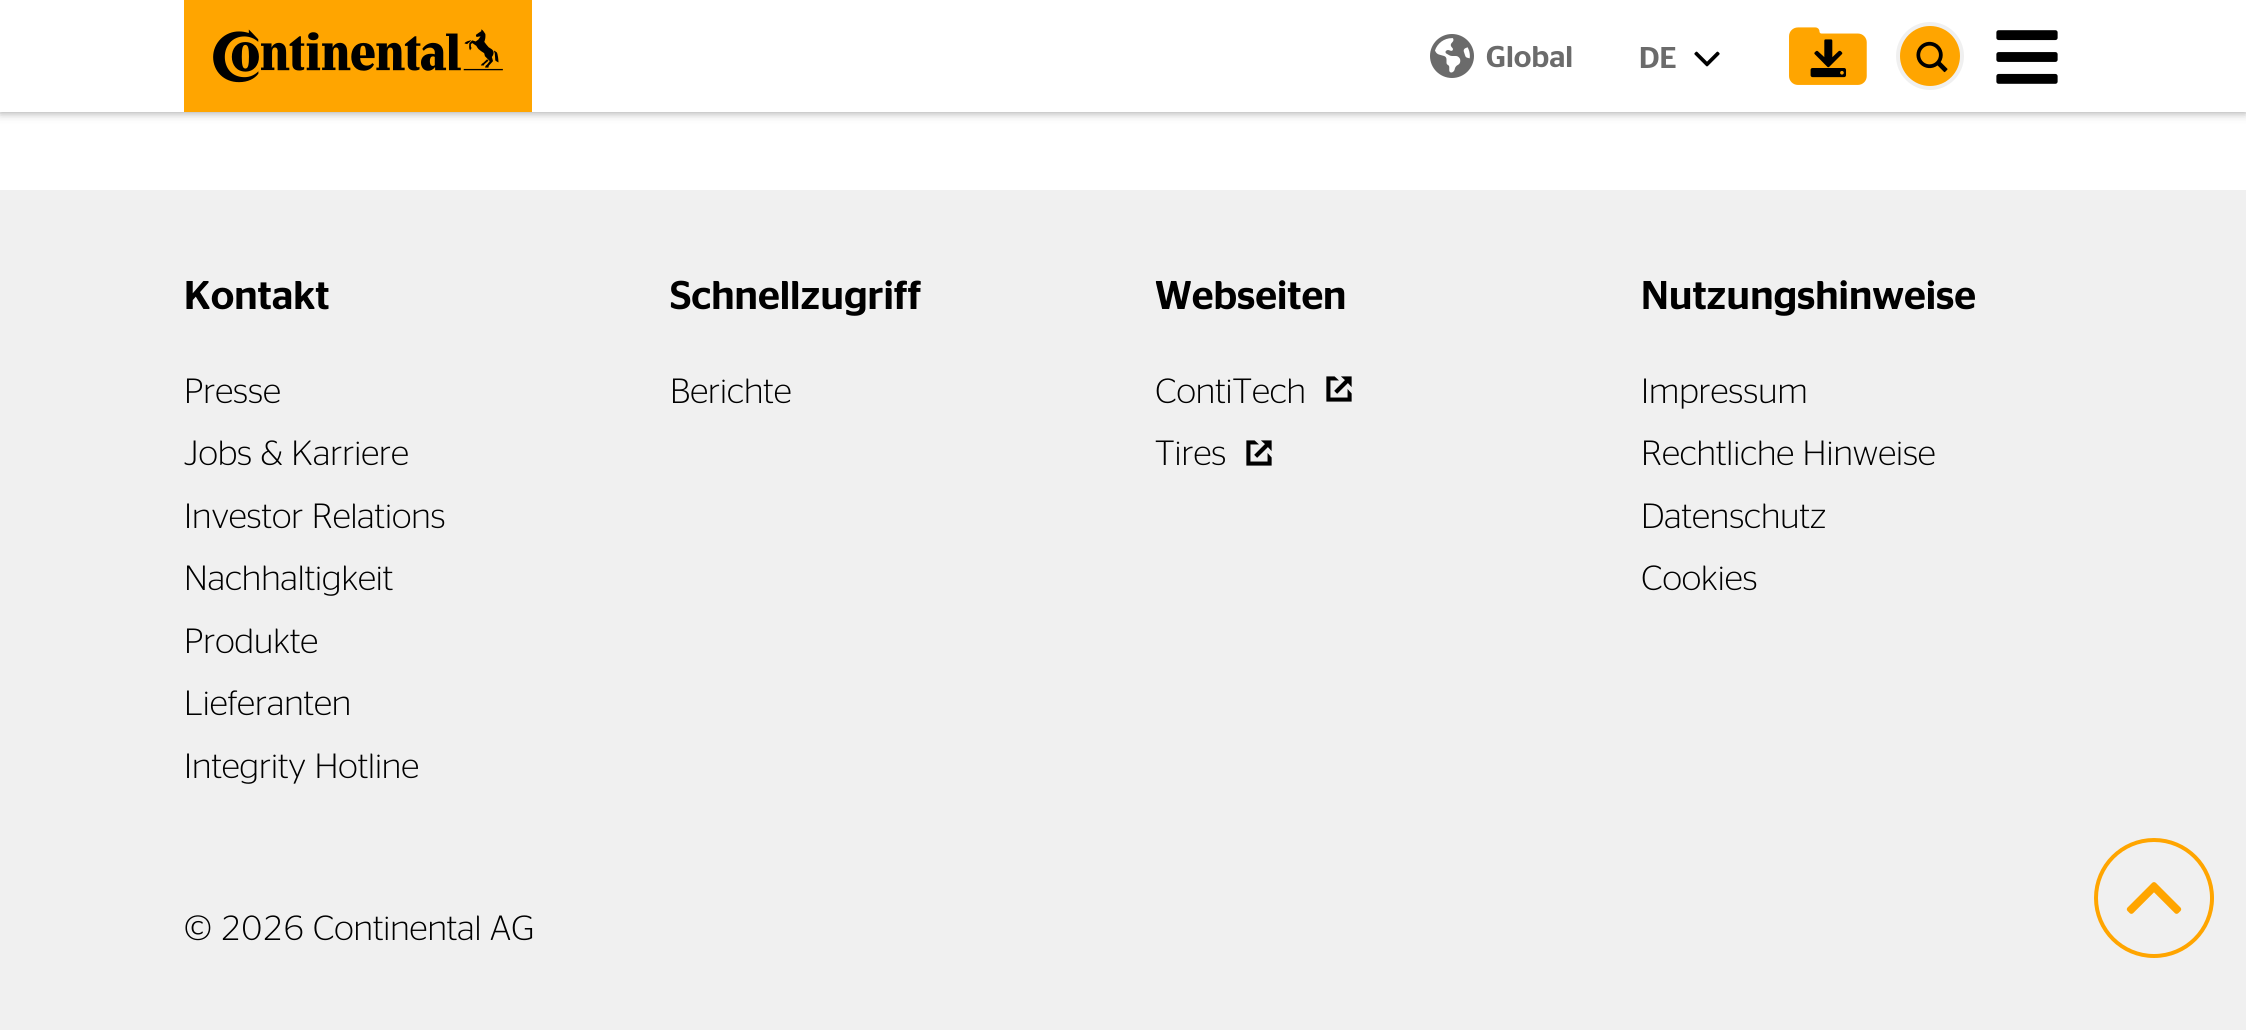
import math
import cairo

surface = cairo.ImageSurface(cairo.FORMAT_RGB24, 2246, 1030)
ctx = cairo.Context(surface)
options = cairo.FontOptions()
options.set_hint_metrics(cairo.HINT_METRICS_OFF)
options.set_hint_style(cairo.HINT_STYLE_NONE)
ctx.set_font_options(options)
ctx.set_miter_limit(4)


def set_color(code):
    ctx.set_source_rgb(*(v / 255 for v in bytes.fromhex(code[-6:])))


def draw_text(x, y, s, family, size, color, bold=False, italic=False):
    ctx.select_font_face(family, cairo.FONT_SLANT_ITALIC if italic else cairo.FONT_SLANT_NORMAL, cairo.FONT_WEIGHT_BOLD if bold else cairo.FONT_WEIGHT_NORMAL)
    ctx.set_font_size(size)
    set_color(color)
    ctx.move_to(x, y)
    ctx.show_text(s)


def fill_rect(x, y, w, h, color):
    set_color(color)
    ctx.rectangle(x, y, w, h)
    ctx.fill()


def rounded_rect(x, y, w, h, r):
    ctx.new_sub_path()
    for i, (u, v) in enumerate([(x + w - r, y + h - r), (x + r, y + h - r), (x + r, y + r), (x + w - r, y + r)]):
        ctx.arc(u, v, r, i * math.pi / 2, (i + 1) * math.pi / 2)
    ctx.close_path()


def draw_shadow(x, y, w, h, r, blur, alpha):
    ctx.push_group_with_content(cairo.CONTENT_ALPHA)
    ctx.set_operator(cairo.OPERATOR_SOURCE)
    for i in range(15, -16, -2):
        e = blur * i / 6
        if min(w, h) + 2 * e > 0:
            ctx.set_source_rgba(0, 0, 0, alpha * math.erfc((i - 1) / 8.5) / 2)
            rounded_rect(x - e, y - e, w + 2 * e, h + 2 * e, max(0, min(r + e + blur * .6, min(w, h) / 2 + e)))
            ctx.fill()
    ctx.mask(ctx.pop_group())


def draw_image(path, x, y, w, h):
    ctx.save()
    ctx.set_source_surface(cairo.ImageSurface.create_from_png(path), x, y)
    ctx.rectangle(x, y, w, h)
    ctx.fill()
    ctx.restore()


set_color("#ffffff")
ctx.paint()
set_color("#969696")
draw_shadow(0, 0, 2246, 112, 0, 5, 1)
fill_rect(0, 0, 2246, 112, "#ffffff")
fill_rect(184, 0, 348, 112, "#ffa500")
draw_image("assets/img1.png", 213, 29, 290, 54)
draw_image("assets/img2.png", 1430, 34, 44, 44)
draw_text(1486, 67, "Global", "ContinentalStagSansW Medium", 30, "#6b6b6b")
draw_text(1639, 68, "DE", "ContinentalStagSansW Medium", 30, "#6b6b6b")
draw_image("assets/img3.png", 1694, 51, 26, 16)
draw_image("assets/img4.png", 1789, 27, 78, 58)
set_color("#ffa500")
ctx.arc(1930, 56, 32, 0, 2 * math.pi)
ctx.fill_preserve()
set_color("#f0f0f0")
ctx.set_line_width(4)
ctx.stroke()
draw_image("assets/img5.png", 1916, 41, 32, 32)
draw_image("assets/img6.png", 1996, 30, 62, 54)
fill_rect(0, 190, 2246, 840, "#f0f0f0")
draw_text(184, 309, "Kontakt", "ContinentalStagSansW Medium", 40, "#000000")
draw_text(184, 403, "Presse", "ContinentalStagSansW Light", 35, "#000000")
draw_text(184, 465, "Jobs & Karriere", "ContinentalStagSansW Light", 35, "#000000")
draw_text(184, 528, "Investor Relations", "ContinentalStagSansW Light", 35, "#000000")
draw_text(184, 590, "Nachhaltigkeit", "ContinentalStagSansW Light", 35, "#000000")
draw_text(184, 653, "Produkte", "ContinentalStagSansW Light", 35, "#000000")
draw_text(184, 715, "Lieferanten", "ContinentalStagSansW Light", 35, "#000000")
draw_text(184, 778, "Integrity Hotline", "ContinentalStagSansW Light", 35, "#000000")
draw_text(670, 309, "Schnellzugriff", "ContinentalStagSansW Medium", 40, "#000000")
draw_text(670, 403, "Berichte", "ContinentalStagSansW Light", 35, "#000000")
draw_text(1155, 309, "Webseiten", "ContinentalStagSansW Medium", 40, "#000000")
draw_text(1155, 403, "ContiTech", "ContinentalStagSansW Light", 35, "#000000")
draw_image("assets/img7.png", 1326, 376, 26, 26)
draw_text(1155, 465, "Tires", "ContinentalStagSansW Light", 35, "#000000")
draw_image("assets/img7.png", 1246, 440, 26, 26)
draw_text(1641, 309, "Nutzungshinweise", "ContinentalStagSansW Medium", 40, "#000000")
draw_text(1641, 403, "Impressum", "ContinentalStagSansW Light", 35, "#000000")
draw_text(1641, 465, "Rechtliche Hinweise", "ContinentalStagSansW Light", 35, "#000000")
draw_text(1641, 528, "Datenschutz", "ContinentalStagSansW Light", 35, "#000000")
draw_text(1641, 590, "Cookies", "ContinentalStagSansW Light", 35, "#000000")
draw_text(184, 940, "© 2026 Continental AG", "ContinentalStagSansW Light", 35, "#000000")
ctx.new_path()
ctx.arc(2154, 898, 58, 0, 2 * math.pi)
set_color("#ffa500")
ctx.stroke()
draw_image("assets/img8.png", 2126, 882, 56, 32)
surface.write_to_png("output.png")
